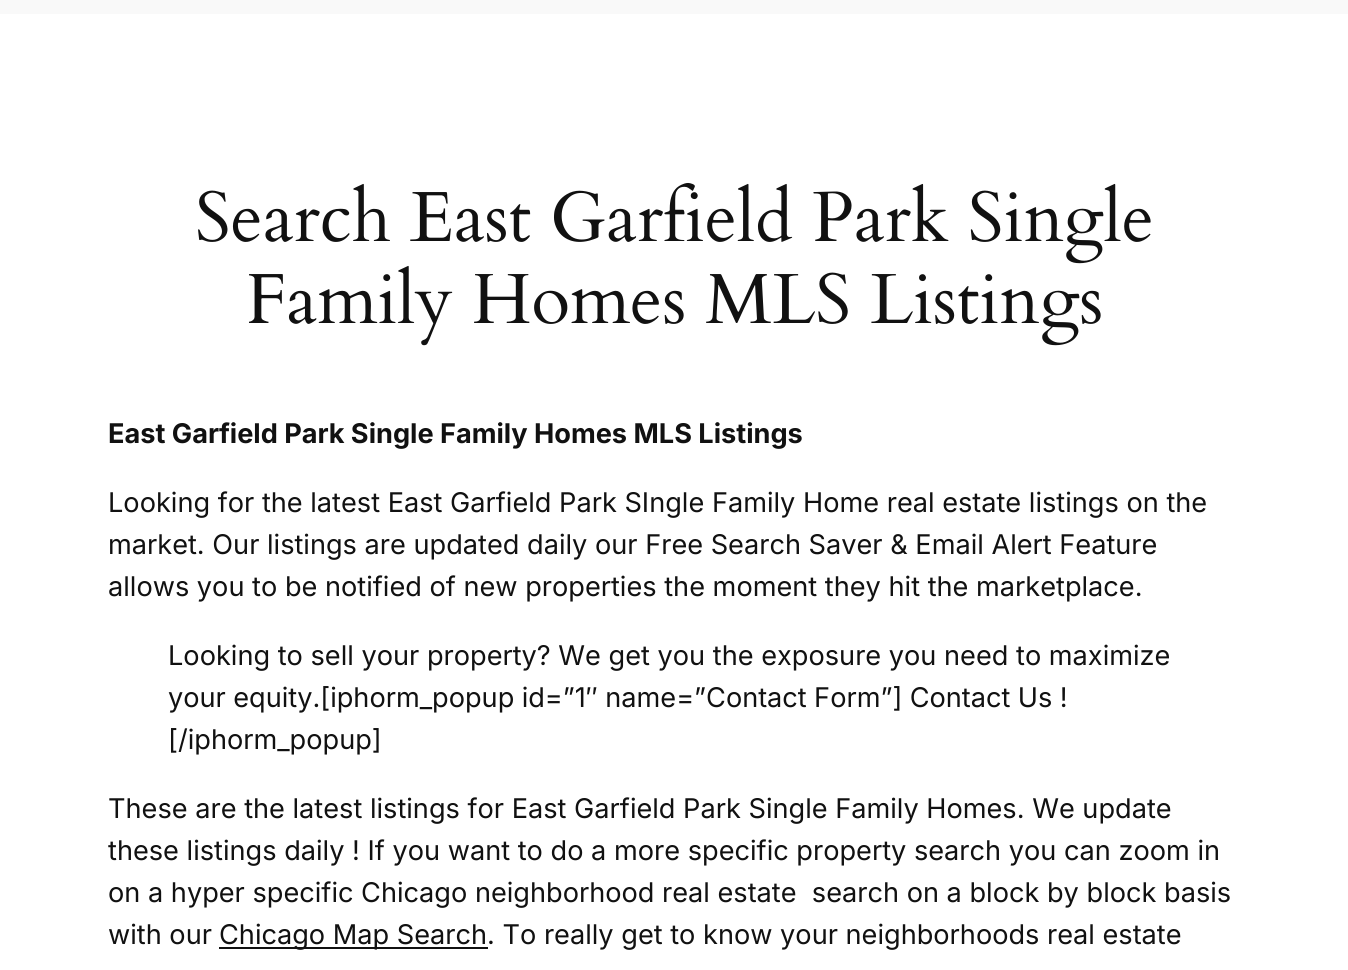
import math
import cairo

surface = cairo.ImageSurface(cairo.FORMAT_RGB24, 1348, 970)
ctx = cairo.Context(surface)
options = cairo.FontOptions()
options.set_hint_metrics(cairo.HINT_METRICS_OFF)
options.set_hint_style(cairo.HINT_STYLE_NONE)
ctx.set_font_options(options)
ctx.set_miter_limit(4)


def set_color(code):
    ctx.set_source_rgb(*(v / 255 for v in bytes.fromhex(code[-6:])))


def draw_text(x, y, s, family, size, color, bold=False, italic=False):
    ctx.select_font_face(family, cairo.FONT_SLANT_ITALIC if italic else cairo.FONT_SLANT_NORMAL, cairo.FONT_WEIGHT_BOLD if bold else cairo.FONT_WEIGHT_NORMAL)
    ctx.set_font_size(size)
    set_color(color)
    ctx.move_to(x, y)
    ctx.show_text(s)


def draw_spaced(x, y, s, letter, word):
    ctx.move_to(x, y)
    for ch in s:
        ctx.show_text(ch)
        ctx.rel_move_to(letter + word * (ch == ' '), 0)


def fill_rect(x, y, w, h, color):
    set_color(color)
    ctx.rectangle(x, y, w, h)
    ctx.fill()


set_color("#ffffff")
ctx.paint()
fill_rect(0, 0, 1348, 14, "#f9f9f9")
draw_text(195, 241, "Search East Garfield Park Single", "Cardo", 71.1, "#111111")
draw_text(246, 323, "Family Homes MLS Listings", "Cardo", 71.1, "#111111")
draw_text(108, 443, "East Garfield Park Single Family Homes MLS Listings", "Inter", 27.15, "#111111", bold=True)
draw_text(108, 512, "Looking for the latest East Garfield Park SIngle Family Home real estate listings on the", "Inter", 27.15, "#111111")
draw_text(108, 554, "market. Our listings are updated daily our Free Search Saver & Email Alert Feature", "Inter", 27.15, "#111111")
draw_text(108, 596, "allows you to be notified of new properties the moment they hit the marketplace.", "Inter", 27.15, "#111111")
draw_text(168, 665, "Looking to sell your property? We get you the exposure you need to maximize", "Inter", 27.15, "#111111")
draw_spaced(168, 707, "your equity.[iphorm_popup id=”1″ name=”Contact Form”] Contact Us !", 0, -0.25)
draw_text(168, 749, "[/iphorm_popup]", "Inter", 27.15, "#111111")
draw_text(108, 818, "These are the latest listings for East Garfield Park Single Family Homes. We update", "Inter", 27.15, "#111111")
draw_text(108, 860, "these listings daily ! If you want to do a more specific property search you can zoom in", "Inter", 27.15, "#111111")
draw_text(108, 902, "on a hyper specific Chicago neighborhood real estate  search on a block by block basis", "Inter", 27.15, "#111111")
draw_text(108, 944, "with our", "Inter", 27.15, "#111111")
fill_rect(219, 947, 269, 2, "#111111")
draw_text(219, 944, "Chicago Map Search", "Inter", 27.15, "#111111")
draw_text(487, 944, ". To really get to know your neighborhoods real estate", "Inter", 27.15, "#111111")
surface.write_to_png("output.png")
